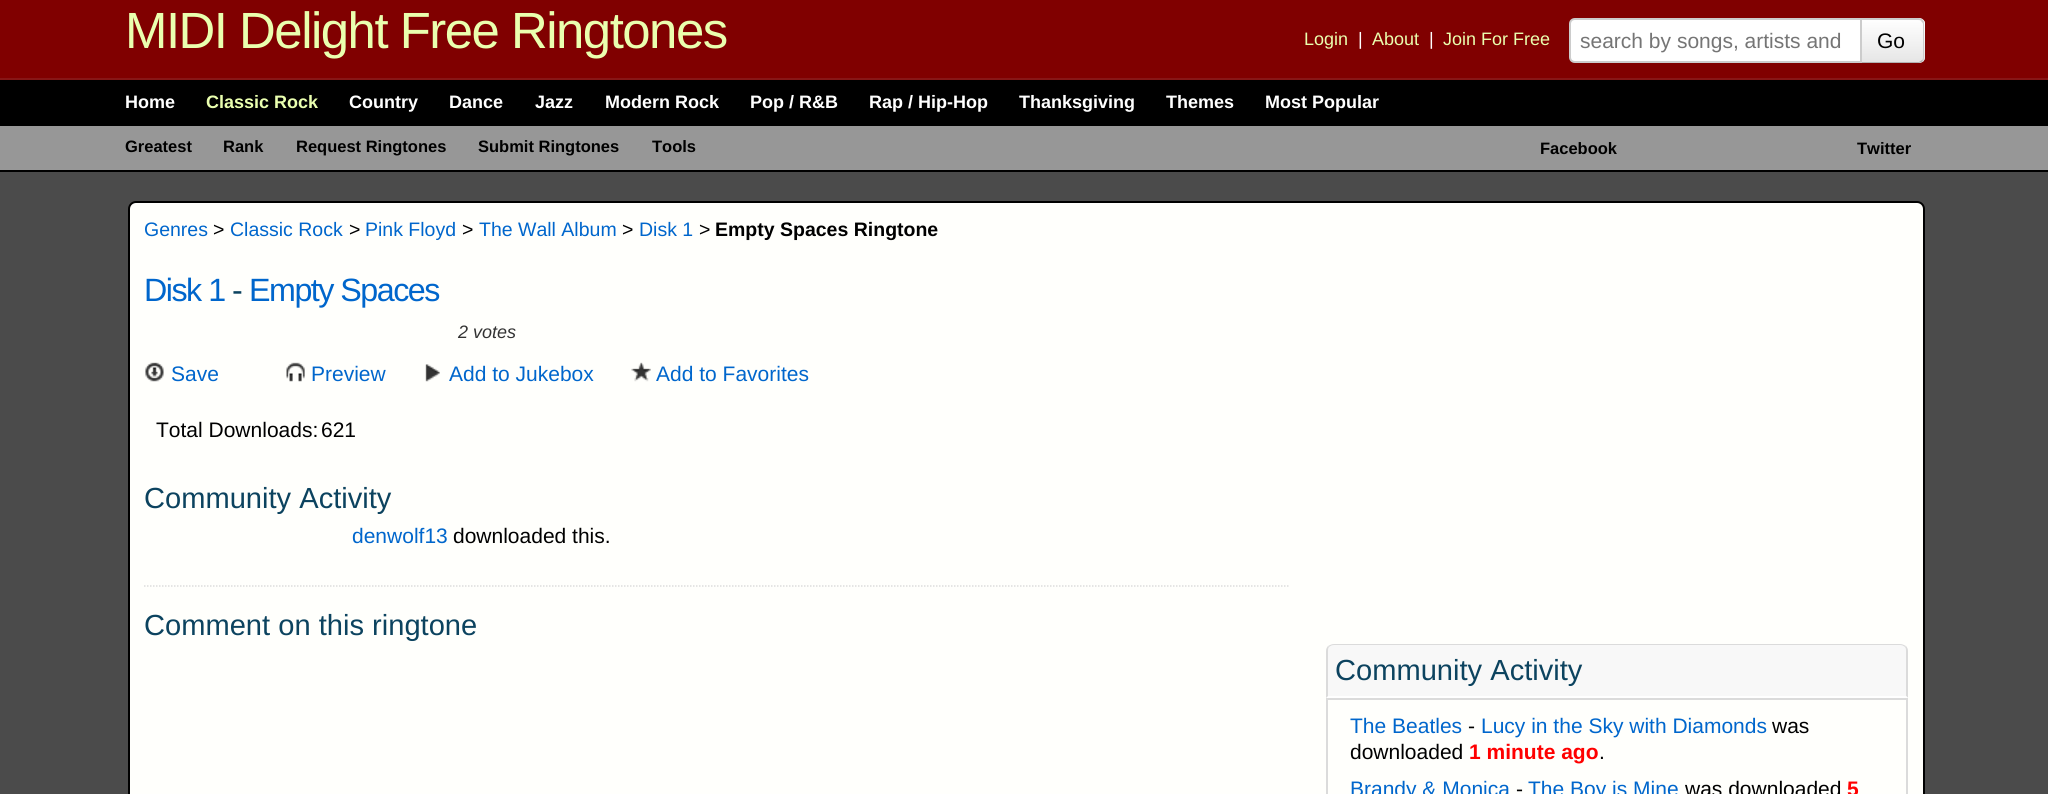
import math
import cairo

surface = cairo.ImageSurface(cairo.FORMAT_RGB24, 2048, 794)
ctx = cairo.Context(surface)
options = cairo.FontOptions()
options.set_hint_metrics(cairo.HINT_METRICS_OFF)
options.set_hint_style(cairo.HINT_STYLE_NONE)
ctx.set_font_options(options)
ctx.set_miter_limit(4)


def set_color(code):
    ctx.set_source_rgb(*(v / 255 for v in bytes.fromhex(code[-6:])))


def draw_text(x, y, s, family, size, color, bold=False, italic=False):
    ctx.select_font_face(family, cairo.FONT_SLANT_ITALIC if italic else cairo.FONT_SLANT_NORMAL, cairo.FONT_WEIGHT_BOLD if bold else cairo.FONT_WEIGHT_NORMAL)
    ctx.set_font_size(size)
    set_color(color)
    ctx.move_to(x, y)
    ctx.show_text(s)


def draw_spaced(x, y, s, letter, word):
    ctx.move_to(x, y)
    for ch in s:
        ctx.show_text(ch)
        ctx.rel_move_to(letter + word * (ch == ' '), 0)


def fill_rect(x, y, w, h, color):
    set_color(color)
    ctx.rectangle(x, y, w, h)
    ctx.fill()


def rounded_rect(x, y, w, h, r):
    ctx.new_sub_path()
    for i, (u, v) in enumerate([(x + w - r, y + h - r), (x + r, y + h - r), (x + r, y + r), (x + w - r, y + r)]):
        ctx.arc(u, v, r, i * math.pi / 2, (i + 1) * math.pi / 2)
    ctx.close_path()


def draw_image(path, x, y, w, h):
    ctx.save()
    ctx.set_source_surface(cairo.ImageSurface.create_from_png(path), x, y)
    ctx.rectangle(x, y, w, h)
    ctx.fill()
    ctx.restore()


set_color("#4b4b4b")
ctx.paint()
fill_rect(0, 0, 2048, 78, "#800000")
ctx.select_font_face("Liberation Sans")
ctx.set_font_size(50.9)
set_color("#eaffaf")
draw_spaced(125, 48, "MIDI Delight Free Ringtones", -1.5, 0)
draw_text(1304, 45, "Login", "Liberation Sans", 18, "#eaffaf")
draw_text(1358, 45, "|", "Liberation Sans", 18, "#ffffff")
draw_text(1372, 45, "About", "Liberation Sans", 18, "#eaffaf")
draw_text(1429, 45, "|", "Liberation Sans", 18, "#ffffff")
draw_text(1443, 45, "Join For Free", "Liberation Sans", 18, "#eaffaf")
set_color("#f5f5f5")
ctx.new_path()
ctx.move_to(1857, 18)
ctx.line_to(1919, 18)
ctx.curve_to(1922.5, 18, 1925, 20.5, 1925, 24)
ctx.line_to(1925, 57)
ctx.curve_to(1925, 60.5, 1922.5, 63, 1919, 63)
ctx.line_to(1857, 63)
ctx.close_path()
ctx.fill()
ctx.save()
ctx.new_path()
ctx.move_to(1857, 18)
ctx.line_to(1919, 18)
ctx.curve_to(1922.5, 18, 1925, 20.5, 1925, 24)
ctx.line_to(1925, 57)
ctx.curve_to(1925, 60.5, 1922.5, 63, 1919, 63)
ctx.line_to(1857, 63)
ctx.close_path()
ctx.clip()
gradient = cairo.LinearGradient(1891, 19, 1891, 62)
gradient.add_color_stop_rgba(0, 1, 1, 1, 1)
gradient.add_color_stop_rgba(1, 0.902, 0.902, 0.902, 1)
ctx.set_source(gradient)
ctx.rectangle(1862, 20, 63, 42)
ctx.fill()
ctx.restore()
set_color("#cccccc")
ctx.new_path()
ctx.move_to(1857, 18)
ctx.line_to(1859, 20)
ctx.line_to(1918, 20)
ctx.curve_to(1919, 20, 1921, 20, 1921, 21)
ctx.line_to(1923, 20)
ctx.curve_to(1922, 19, 1920, 18, 1918, 18)
ctx.close_path()
ctx.fill()
ctx.new_path()
ctx.move_to(1923, 20)
ctx.curve_to(1924, 21, 1924, 23, 1924, 24)
ctx.line_to(1924, 57)
ctx.curve_to(1924, 58, 1924, 60, 1923, 61)
ctx.line_to(1922, 60)
ctx.curve_to(1923, 59, 1923, 58, 1923, 57)
ctx.line_to(1923, 24)
ctx.curve_to(1923, 23, 1922, 22, 1921, 21)
ctx.close_path()
ctx.fill()
set_color("#b3b3b3")
ctx.new_path()
ctx.move_to(1918, 63)
ctx.curve_to(1920, 63, 1922, 62, 1923, 61)
ctx.line_to(1922, 60)
ctx.line_to(1919, 62)
ctx.line_to(1858, 62)
ctx.line_to(1857, 63)
ctx.close_path()
ctx.fill()
set_color("#ffffff")
ctx.new_path()
ctx.move_to(1575, 19)
ctx.line_to(1861, 19)
ctx.line_to(1861, 62)
ctx.line_to(1575, 62)
ctx.curve_to(1572, 62, 1570, 60, 1570, 57)
ctx.line_to(1570, 24)
ctx.curve_to(1570, 21, 1572, 19, 1575, 19)
ctx.close_path()
ctx.fill_preserve()
set_color("#cccccc")
ctx.stroke()
draw_text(1580, 48, "search by songs, artists and", "Liberation Sans", 21, "#757575")
draw_text(1877, 48, "Go", "Liberation Sans", 21, "#000000")
fill_rect(0, 78, 2048, 2, "#871616")
fill_rect(0, 170, 2048, 2, "#000000")
fill_rect(0, 80, 2048, 46, "#000000")
draw_text(125, 108, "Home", "Liberation Sans", 18, "#ffffff", bold=True)
draw_text(206, 108, "Classic Rock", "Liberation Sans", 18, "#eaffaf", bold=True)
draw_text(349, 108, "Country", "Liberation Sans", 18, "#ffffff", bold=True)
draw_text(449, 108, "Dance", "Liberation Sans", 18, "#ffffff", bold=True)
draw_text(535, 108, "Jazz", "Liberation Sans", 18, "#ffffff", bold=True)
draw_text(605, 108, "Modern Rock", "Liberation Sans", 18, "#ffffff", bold=True)
draw_text(750, 108, "Pop / R&B", "Liberation Sans", 18, "#ffffff", bold=True)
draw_text(869, 108, "Rap / Hip-Hop", "Liberation Sans", 18, "#ffffff", bold=True)
draw_text(1019, 108, "Thanksgiving", "Liberation Sans", 18, "#ffffff", bold=True)
draw_text(1166, 108, "Themes", "Liberation Sans", 18, "#ffffff", bold=True)
draw_text(1265, 108, "Most Popular", "Liberation Sans", 18, "#ffffff", bold=True)
fill_rect(0, 126, 2048, 44, "#979797")
draw_text(125, 152, "Greatest", "Liberation Sans", 16.5, "#000000", bold=True)
draw_text(223, 152, "Rank", "Liberation Sans", 16.5, "#000000", bold=True)
draw_text(296, 152, "Request Ringtones", "Liberation Sans", 16.5, "#000000", bold=True)
draw_text(478, 152, "Submit Ringtones", "Liberation Sans", 16.5, "#000000", bold=True)
draw_text(652, 152, "Tools", "Liberation Sans", 16.5, "#000000", bold=True)
draw_text(1540, 154, "Facebook", "Liberation Sans", 16.5, "#000000", bold=True)
draw_text(1857, 154, "Twitter", "Liberation Sans", 16.5, "#000000", bold=True)
set_color("#fffffc")
rounded_rect(129, 202, 1795, 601, 7)
ctx.fill_preserve()
set_color("#000000")
ctx.stroke()
draw_text(144, 236, "Genres", "Liberation Sans", 19.5, "#0066cc")
draw_text(213, 236, ">", "Liberation Sans", 19.5, "#000000")
draw_text(230, 236, "Classic Rock", "Liberation Sans", 19.5, "#0066cc")
draw_text(349, 236, ">", "Liberation Sans", 19.5, "#000000")
draw_text(365, 236, "Pink Floyd", "Liberation Sans", 19.5, "#0066cc")
draw_text(462, 236, ">", "Liberation Sans", 19.5, "#000000")
draw_text(479, 236, "The Wall Album", "Liberation Sans", 19.5, "#0066cc")
draw_text(622, 236, ">", "Liberation Sans", 19.5, "#000000")
draw_text(639, 236, "Disk 1", "Liberation Sans", 19.5, "#0066cc")
draw_text(699, 236, ">", "Liberation Sans", 19.5, "#000000")
draw_text(715, 236, "Empty Spaces Ringtone", "Liberation Sans", 19.5, "#000000", bold=True)
ctx.select_font_face("Liberation Sans")
ctx.set_font_size(32.25)
set_color("#0066cc")
draw_spaced(144, 301, "Disk 1", -1.5, 0)
set_color("#0c435f")
draw_spaced(232, 301, "-", -1.5, 0)
set_color("#0066cc")
draw_spaced(249, 301, "Empty Spaces", -1.5, 0)
draw_text(458, 338, "2 votes", "Liberation Sans", 18, "#333333", italic=True)
draw_image("assets/img1.png", 145, 362, 19, 20)
draw_text(171, 381, "Save", "Liberation Sans", 21, "#0066cc")
draw_image("assets/img2.png", 286, 362, 19, 20)
draw_text(311, 381, "Preview", "Liberation Sans", 21, "#0066cc")
draw_image("assets/img3.png", 425, 364, 15, 18)
draw_text(449, 381, "Add to Jukebox", "Liberation Sans", 21, "#0066cc")
draw_image("assets/img4.png", 631, 362, 20, 20)
draw_text(656, 381, "Add to Favorites", "Liberation Sans", 21, "#0066cc")
draw_text(156, 437, "Total Downloads:", "Liberation Sans", 21, "#000000")
draw_text(321, 437, "621", "Liberation Sans", 21, "#000000")
ctx.new_path()
ctx.move_to(144, 586)
ctx.line_to(1290, 586)
set_color("#dcdcdc")
ctx.set_line_width(1.5)
ctx.set_dash([1.5, 1.5])
ctx.stroke()
draw_text(144, 508, "Community Activity", "Liberation Sans", 29.1, "#0c435f")
draw_text(352, 543, "denwolf13", "Liberation Sans", 21, "#0066cc")
draw_text(453, 543, "downloaded this.", "Liberation Sans", 21, "#000000")
draw_text(144, 635, "Comment on this ringtone", "Liberation Sans", 29.1, "#0c435f")
set_color("#f8f8f8")
ctx.new_path()
ctx.move_to(1334, 644)
ctx.line_to(1900, 644)
ctx.curve_to(1904.5, 644, 1908, 647.5, 1908, 652)
ctx.line_to(1908, 698)
ctx.line_to(1326, 698)
ctx.line_to(1326, 652)
ctx.curve_to(1326, 647.5, 1329.5, 644, 1334, 644)
ctx.close_path()
ctx.fill()
set_color("#dbdbdb")
ctx.new_path()
ctx.move_to(1334, 644)
ctx.curve_to(1332, 644, 1330, 645, 1328, 646)
ctx.line_to(1329, 647)
ctx.curve_to(1330, 646, 1332, 645, 1334, 645)
ctx.line_to(1900, 645)
ctx.curve_to(1902, 645, 1904, 646, 1905, 647)
ctx.line_to(1906, 646)
ctx.curve_to(1904, 645, 1902, 644, 1900, 644)
ctx.close_path()
ctx.fill()
ctx.new_path()
ctx.move_to(1906, 646)
ctx.curve_to(1907, 647, 1908, 649, 1908, 651)
ctx.line_to(1908, 698)
ctx.line_to(1906, 696)
ctx.line_to(1906, 651)
ctx.curve_to(1906, 650, 1906, 648, 1905, 647)
ctx.close_path()
ctx.fill()
set_color("#ffffff")
ctx.new_path()
ctx.move_to(1908, 698)
ctx.line_to(1326, 698)
ctx.line_to(1328, 696)
ctx.line_to(1906, 696)
ctx.close_path()
ctx.fill()
set_color("#dbdbdb")
ctx.new_path()
ctx.move_to(1326, 698)
ctx.line_to(1328, 696)
ctx.line_to(1328, 651)
ctx.curve_to(1328, 650, 1328, 648, 1329, 647)
ctx.line_to(1328, 646)
ctx.curve_to(1327, 647, 1326, 649, 1326, 651)
ctx.close_path()
ctx.fill()
draw_text(1335, 680, "Community Activity", "Liberation Sans", 29.1, "#0c435f")
ctx.rectangle(1327, 699, 580, 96)
set_color("#dbdbdb")
ctx.set_line_width(2)
ctx.set_dash([])
ctx.stroke()
draw_text(1350, 733, "The Beatles", "Liberation Sans", 21, "#0066cc")
draw_text(1468, 733, "-", "Liberation Sans", 21, "#000000")
draw_text(1481, 733, "Lucy in the Sky with Diamonds", "Liberation Sans", 21, "#0066cc")
draw_text(1772, 733, "was", "Liberation Sans", 21, "#000000")
draw_text(1350, 759, "downloaded", "Liberation Sans", 21, "#000000")
draw_text(1469, 759, "1 minute ago", "Liberation Sans", 21, "#ff0000", bold=True)
draw_text(1599, 759, ".", "Liberation Sans", 21, "#000000")
draw_text(1350, 796, "Brandy & Monica", "Liberation Sans", 21, "#0066cc")
draw_text(1516, 796, "-", "Liberation Sans", 21, "#000000")
draw_text(1528, 796, "The Boy is Mine", "Liberation Sans", 21, "#0066cc")
draw_text(1685, 796, "was downloaded", "Liberation Sans", 21, "#000000")
draw_text(1847, 796, "5", "Liberation Sans", 21, "#ff0000", bold=True)
surface.write_to_png("output.png")
